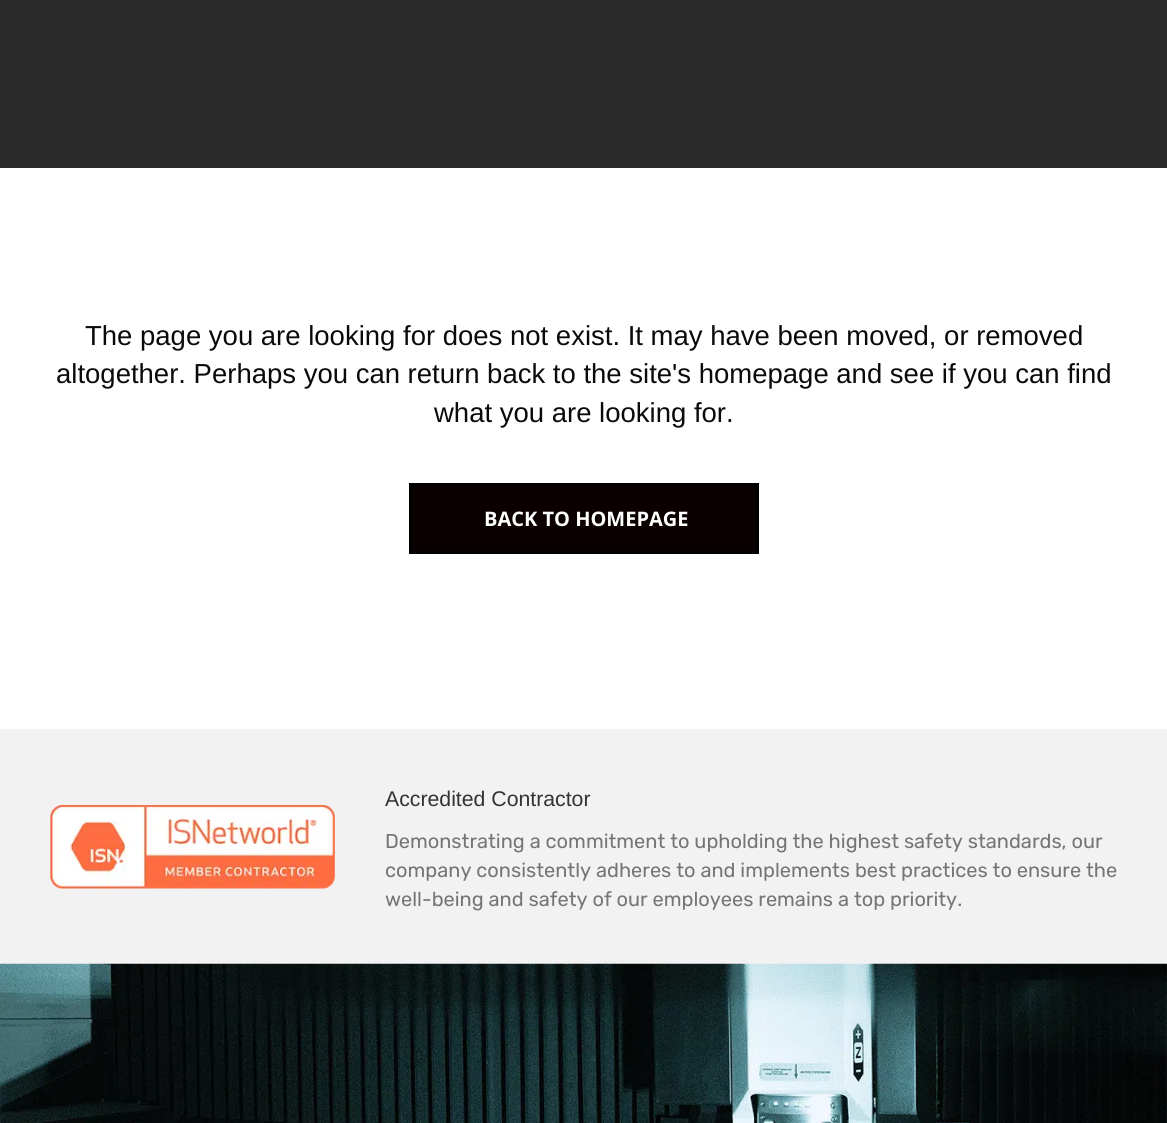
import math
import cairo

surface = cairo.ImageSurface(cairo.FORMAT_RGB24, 1167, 1123)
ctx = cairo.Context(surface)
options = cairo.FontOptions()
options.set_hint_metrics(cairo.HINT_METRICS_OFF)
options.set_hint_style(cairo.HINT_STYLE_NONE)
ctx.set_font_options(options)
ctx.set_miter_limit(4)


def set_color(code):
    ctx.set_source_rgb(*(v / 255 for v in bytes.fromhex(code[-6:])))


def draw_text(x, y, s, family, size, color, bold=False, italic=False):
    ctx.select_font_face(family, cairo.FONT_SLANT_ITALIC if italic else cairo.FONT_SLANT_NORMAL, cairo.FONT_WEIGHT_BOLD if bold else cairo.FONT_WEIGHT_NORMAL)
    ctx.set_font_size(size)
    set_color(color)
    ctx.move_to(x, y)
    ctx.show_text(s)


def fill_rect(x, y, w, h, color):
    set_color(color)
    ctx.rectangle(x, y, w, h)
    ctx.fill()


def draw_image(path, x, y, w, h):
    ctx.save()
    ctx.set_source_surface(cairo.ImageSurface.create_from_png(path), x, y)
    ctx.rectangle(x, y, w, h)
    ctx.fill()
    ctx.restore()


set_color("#f2f2f2")
ctx.paint()
fill_rect(0, 168, 1167, 561, "#ffffff")
fill_rect(0, 0, 1167, 168, "#2b2b2b")
draw_text(85, 345, "The page you are looking for does not exist. It may have been moved, or removed", "Liberation Sans", 27.5, "#0a0a0a")
draw_text(56, 383, "altogether. Perhaps you can return back to the site's homepage and see if you can find", "Liberation Sans", 27.5, "#0a0a0a")
draw_text(434, 422, "what you are looking for.", "Liberation Sans", 27.5, "#0a0a0a")
set_color("#0a0000")
ctx.rectangle(410.5, 484.5, 347, 68)
ctx.fill_preserve()
set_color("#000000")
ctx.set_line_width(3)
ctx.stroke()
draw_text(484, 526, "BACK TO HOMEPAGE", "Open Sans", 20, "#ffffff", bold=True)
draw_image("assets/img1.png", 50, 805, 285, 84)
draw_text(385, 806, "Accredited Contractor", "Liberation Sans", 21.25, "#333333")
draw_text(385, 848, "Demonstrating a commitment to upholding the highest safety standards, our", "Rubik", 20, "#757575")
draw_text(385, 877, "company consistently adheres to and implements best practices to ensure the", "Rubik", 20, "#757575")
draw_text(385, 906, "well-being and safety of our employees remains a top priority.", "Rubik", 20, "#757575")
draw_image("assets/img2.png", 0, 963, 1167, 160)
surface.write_to_png("output.png")
